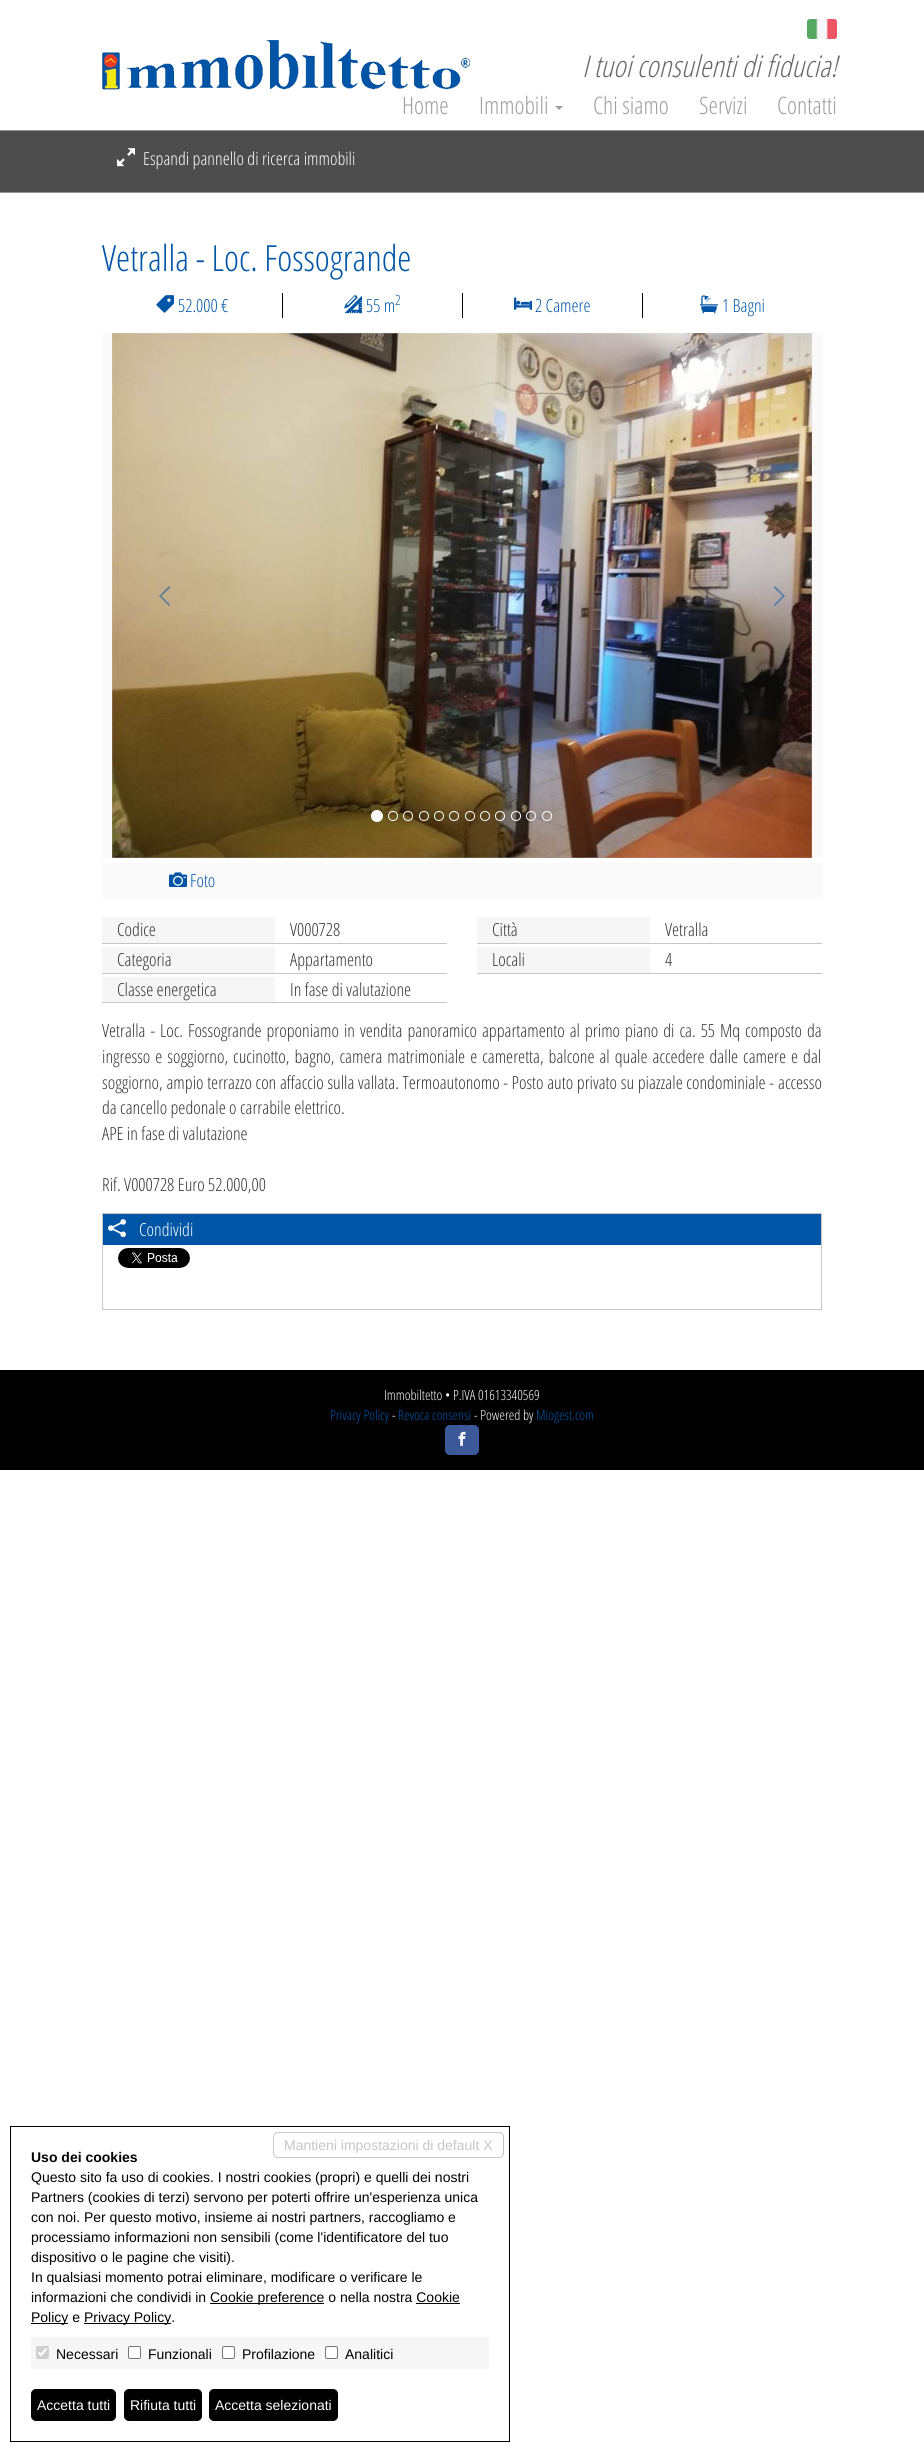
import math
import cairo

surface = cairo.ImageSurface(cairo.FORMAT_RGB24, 924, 2452)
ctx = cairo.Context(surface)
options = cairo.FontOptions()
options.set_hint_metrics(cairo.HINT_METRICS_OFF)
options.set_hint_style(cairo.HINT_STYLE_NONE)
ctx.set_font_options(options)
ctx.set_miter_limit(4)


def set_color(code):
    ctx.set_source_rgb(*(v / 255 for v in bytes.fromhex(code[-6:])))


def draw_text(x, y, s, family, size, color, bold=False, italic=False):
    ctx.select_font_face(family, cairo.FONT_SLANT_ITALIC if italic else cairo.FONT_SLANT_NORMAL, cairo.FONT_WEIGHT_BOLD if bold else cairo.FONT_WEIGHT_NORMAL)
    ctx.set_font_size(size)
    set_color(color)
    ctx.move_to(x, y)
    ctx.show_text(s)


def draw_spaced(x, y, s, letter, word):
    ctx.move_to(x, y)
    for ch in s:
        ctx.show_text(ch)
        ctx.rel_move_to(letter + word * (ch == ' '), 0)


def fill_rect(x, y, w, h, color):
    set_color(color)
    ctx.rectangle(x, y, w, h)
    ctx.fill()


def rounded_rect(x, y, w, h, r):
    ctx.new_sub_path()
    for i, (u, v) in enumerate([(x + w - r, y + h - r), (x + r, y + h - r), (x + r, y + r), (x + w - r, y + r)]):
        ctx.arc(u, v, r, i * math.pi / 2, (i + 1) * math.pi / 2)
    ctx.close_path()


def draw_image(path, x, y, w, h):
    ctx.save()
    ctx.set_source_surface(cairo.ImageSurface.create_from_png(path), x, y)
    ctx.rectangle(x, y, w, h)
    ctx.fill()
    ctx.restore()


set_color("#ffffff")
ctx.paint()
fill_rect(0, 130, 924, 1, "#969696")
draw_image("assets/img1.png", 807, 19, 30, 20)
draw_image("assets/img2.png", 102, 40, 368, 50)
draw_text(582, 77, "I tuoi consulenti di fiducia!", "Open Sans Condensed Light", 30, "#696969", italic=True)
draw_text(402, 114, "Home", "Open Sans Condensed Light", 24, "#9d9d9d")
draw_text(479, 114, "Immobili", "Open Sans Condensed Light", 24, "#9d9d9d")
ctx.new_path()
ctx.move_to(555, 106)
ctx.line_to(563, 106)
ctx.line_to(559, 110)
ctx.close_path()
ctx.fill()
draw_text(593, 114, "Chi siamo", "Open Sans Condensed Light", 24, "#9d9d9d")
draw_text(699, 114, "Servizi", "Open Sans Condensed Light", 24, "#9d9d9d")
draw_text(777, 114, "Contatti", "Open Sans Condensed Light", 24, "#9d9d9d")
fill_rect(0, 131, 924, 61, "#4d4d4d")
fill_rect(0, 192, 924, 1, "#969696")
draw_image("assets/img3.png", 117, 148, 18, 19)
draw_text(143, 165, "Espandi pannello di ricerca immobili", "Open Sans Condensed Light", 18, "#ffffff")
draw_text(102, 271, "Vetralla - Loc. Fossogrande", "Open Sans Condensed Light", 36, "#0055a6")
draw_image("assets/img4.png", 156, 295, 18, 18)
draw_text(178, 312, "52.000 €", "Open Sans Condensed Light", 18, "#0055a6")
fill_rect(282, 293, 1, 25, "#000000")
draw_image("assets/img5.png", 344, 295, 18, 19)
draw_text(366, 312, "55 m", "Open Sans Condensed Light", 18, "#0055a6")
draw_text(395, 305, "2", "Open Sans Condensed Light", 14, "#0055a6")
fill_rect(462, 293, 1, 25, "#000000")
draw_image("assets/img6.png", 514, 297, 18, 13)
draw_text(535, 312, "2 Camere", "Open Sans Condensed Light", 18, "#0055a6")
fill_rect(642, 293, 1, 25, "#000000")
draw_image("assets/img7.png", 700, 295, 18, 19)
draw_text(722, 312, "1 Bagni", "Open Sans Condensed Light", 18, "#0055a6")
fill_rect(102, 333, 720, 525, "#f9f9f9")
draw_image("assets/img8.png", 112, 333, 700, 525)
ctx.set_source_rgba(0, 0.333, 0.651, 0.5)
ctx.new_path()
ctx.move_to(169, 606)
ctx.line_to(170.5, 605)
ctx.line_to(161.5, 596)
ctx.line_to(170.5, 587.5)
ctx.line_to(169, 586)
ctx.line_to(159, 596)
ctx.close_path()
ctx.fill()
ctx.new_path()
ctx.move_to(775, 586)
ctx.line_to(773.5, 587.5)
ctx.line_to(782.5, 596)
ctx.line_to(773.5, 605)
ctx.line_to(775, 606)
ctx.line_to(785, 596)
ctx.close_path()
ctx.fill()
set_color("#ffffff")
ctx.arc(377, 816, 5.5, 0, 2 * math.pi)
ctx.fill_preserve()
ctx.set_line_width(1)
ctx.stroke()
ctx.arc(393, 816, 4.5, 0, 2 * math.pi)
ctx.stroke()
ctx.arc(408, 816, 4.5, 0, 2 * math.pi)
ctx.stroke()
ctx.arc(424, 816, 4.5, 0, 2 * math.pi)
ctx.stroke()
ctx.arc(439, 816, 4.5, 0, 2 * math.pi)
ctx.stroke()
ctx.arc(454, 816, 4.5, 0, 2 * math.pi)
ctx.stroke()
ctx.arc(470, 816, 4.5, 0, 2 * math.pi)
ctx.stroke()
ctx.arc(485, 816, 4.5, 0, 2 * math.pi)
ctx.stroke()
ctx.arc(500, 816, 4.5, 0, 2 * math.pi)
ctx.stroke()
ctx.arc(516, 816, 4.5, 0, 2 * math.pi)
ctx.stroke()
ctx.arc(531, 816, 4.5, 0, 2 * math.pi)
ctx.stroke()
ctx.arc(547, 816, 4.5, 0, 2 * math.pi)
ctx.stroke()
fill_rect(102, 863, 720, 36, "#f9f9f9")
draw_image("assets/img9.png", 169, 872, 18, 15)
draw_text(190, 887, "Foto", "Open Sans Condensed Light", 18, "#0055a6")
fill_rect(102, 917, 173, 26, "#f6f6f6")
fill_rect(102, 943, 345, 1, "#c6c6c6")
draw_text(117, 936, "Codice", "Open Sans Condensed Light", 18, "#333333")
draw_text(290, 936, "V000728", "Open Sans Condensed Light", 18, "#333333")
fill_rect(477, 917, 173, 26, "#f6f6f6")
fill_rect(477, 943, 345, 1, "#c6c6c6")
draw_text(492, 936, "Città", "Open Sans Condensed Light", 18, "#333333")
draw_text(665, 936, "Vetralla", "Open Sans Condensed Light", 18, "#333333")
fill_rect(102, 947, 173, 26, "#f6f6f6")
fill_rect(102, 973, 345, 1, "#c6c6c6")
draw_text(117, 966, "Categoria", "Open Sans Condensed Light", 18, "#333333")
draw_text(290, 966, "Appartamento", "Open Sans Condensed Light", 18, "#333333")
fill_rect(477, 947, 173, 26, "#f6f6f6")
fill_rect(477, 973, 345, 1, "#c6c6c6")
draw_text(492, 966, "Locali", "Open Sans Condensed Light", 18, "#333333")
draw_text(665, 966, "4", "Open Sans Condensed Light", 18, "#333333")
fill_rect(102, 977, 173, 25, "#f6f6f6")
fill_rect(102, 1002, 345, 1, "#c6c6c6")
draw_text(117, 996, "Classe energetica", "Open Sans Condensed Light", 18, "#333333")
draw_text(290, 996, "In fase di valutazione", "Open Sans Condensed Light", 18, "#333333")
draw_spaced(102, 1037, "Vetralla - Loc. Fossogrande proponiamo in vendita panoramico appartamento al primo piano di ca. 55 Mq composto da", 0, 1.6)
draw_spaced(102, 1063, "ingresso e soggiorno, cucinotto, bagno, camera matrimoniale e cameretta, balcone al quale accedere dalle camere e dal", 0, 1.6)
draw_spaced(102, 1089, "soggiorno, ampio terrazzo con affaccio sulla vallata. Termoautonomo - Posto auto privato su piazzale condominiale -", 0, 0.3)
draw_text(778, 1089, "accesso", "Open Sans Condensed Light", 18, "#333333")
draw_text(102, 1114, "da cancello pedonale o carrabile elettrico.", "Open Sans Condensed Light", 18, "#333333")
draw_text(102, 1140, "APE in fase di valutazione", "Open Sans Condensed Light", 18, "#333333")
draw_text(102, 1191, "Rif. V000728 Euro 52.000,00", "Open Sans Condensed Light", 18, "#333333")
ctx.rectangle(102.5, 1213.5, 719, 96)
set_color("#c6c6c6")
ctx.stroke()
fill_rect(103, 1214, 718, 31, "#0055a6")
draw_image("assets/img10.png", 108, 1219, 18, 19)
draw_text(139, 1236, "Condividi", "Open Sans Condensed Light", 18, "#ffffff")
draw_image("assets/img11.png", 118, 1248, 72, 20)
fill_rect(0, 1370, 924, 100, "#000000")
draw_text(384, 1400, "Immobiltetto • P.IVA 01613340569", "Open Sans Condensed Light", 14, "#ffffff")
draw_text(330, 1420, "Privacy Policy", "Open Sans Condensed Light", 14, "#0055a6")
draw_text(392, 1420, "-", "Open Sans Condensed Light", 14, "#ffffff")
draw_text(398, 1420, "Revoca consensi", "Open Sans Condensed Light", 14, "#0055a6")
draw_text(474, 1420, "- Powered by", "Open Sans Condensed Light", 14, "#ffffff")
draw_text(536, 1420, "Miogest.com", "Open Sans Condensed Light", 14, "#0055a6")
set_color("#3b5998")
rounded_rect(445, 1425, 34, 30, 5)
ctx.fill()
draw_image("assets/img12.png", 458, 1431, 8, 15)
ctx.rectangle(10.5, 2126.5, 499, 315)
set_color("#000000")
ctx.stroke()
rounded_rect(273.5, 2132.5, 230, 25, 4.5)
set_color("#c6c6c6")
ctx.stroke()
draw_text(284, 2150, "Mantieni impostazioni di default X", "Liberation Sans", 14, "#c6c6c6")
draw_text(31, 2162, "Uso dei cookies", "Liberation Sans", 14, "#000000", bold=True)
draw_text(31, 2182, "Questo sito fa uso di cookies. I nostri cookies (propri) e quelli dei nostri", "Liberation Sans", 14, "#000000")
draw_text(31, 2202, "Partners (cookies di terzi) servono per poterti offrire un'esperienza unica", "Liberation Sans", 14, "#000000")
draw_text(31, 2222, "con noi. Per questo motivo, insieme ai nostri partners, raccogliamo e", "Liberation Sans", 14, "#000000")
draw_text(31, 2242, "processiamo informazioni non sensibili (come l'identificatore del tuo", "Liberation Sans", 14, "#000000")
draw_text(31, 2262, "dispositivo o le pagine che visiti).", "Liberation Sans", 14, "#000000")
draw_text(31, 2282, "In qualsiasi momento potrai eliminare, modificare o verificare le", "Liberation Sans", 14, "#000000")
draw_text(31, 2302, "informazioni che condividi in", "Liberation Sans", 14, "#000000")
fill_rect(210, 2303, 114, 1, "#000000")
draw_text(210, 2302, "Cookie preference o nella nostra Cookie", "Liberation Sans", 14, "#000000")
fill_rect(31, 2323, 37, 1, "#000000")
draw_text(31, 2322, "Policy e", "Liberation Sans", 14, "#000000")
fill_rect(416, 2303, 44, 1, "#000000")
fill_rect(84, 2323, 87, 1, "#000000")
draw_text(84, 2322, "Privacy Policy.", "Liberation Sans", 14, "#000000")
fill_rect(31, 2337, 458, 32, "#f6f6f6")
set_color("#d0d0d0")
rounded_rect(36, 2346, 13, 13, 2)
ctx.fill()
ctx.new_path()
ctx.move_to(38.5, 2352.5)
ctx.line_to(41, 2355)
ctx.line_to(46.5, 2348.5)
set_color("#ffffff")
ctx.set_line_width(2.1)
ctx.stroke()
draw_text(56, 2359, "Necessari", "Liberation Sans", 14, "#000000")
set_color("#ffffff")
rounded_rect(128.5, 2346.5, 12, 12, 1.5)
ctx.fill_preserve()
set_color("#767676")
ctx.set_line_width(1)
ctx.stroke()
draw_text(148, 2359, "Funzionali", "Liberation Sans", 14, "#000000")
set_color("#ffffff")
rounded_rect(222.5, 2346.5, 12, 12, 1.5)
ctx.fill_preserve()
set_color("#767676")
ctx.stroke()
draw_text(242, 2359, "Profilazione", "Liberation Sans", 14, "#000000")
set_color("#ffffff")
rounded_rect(325.5, 2346.5, 12, 12, 1.5)
ctx.fill_preserve()
set_color("#767676")
ctx.stroke()
draw_text(345, 2359, "Analitici", "Liberation Sans", 14, "#000000")
rounded_rect(31.5, 2389.5, 84, 31, 4.5)
ctx.fill_preserve()
ctx.stroke()
draw_text(37, 2410, "Accetta tutti", "Liberation Sans", 14, "#ffffff")
set_color("#000000")
rounded_rect(124.5, 2389.5, 77, 31, 4.5)
ctx.fill_preserve()
ctx.stroke()
draw_text(130, 2410, "Rifiuta tutti", "Liberation Sans", 14, "#ffffff")
set_color("#000000")
rounded_rect(209.5, 2389.5, 128, 31, 4.5)
ctx.fill_preserve()
ctx.stroke()
draw_text(215, 2410, "Accetta selezionati", "Liberation Sans", 14, "#ffffff")
surface.write_to_png("output.png")
